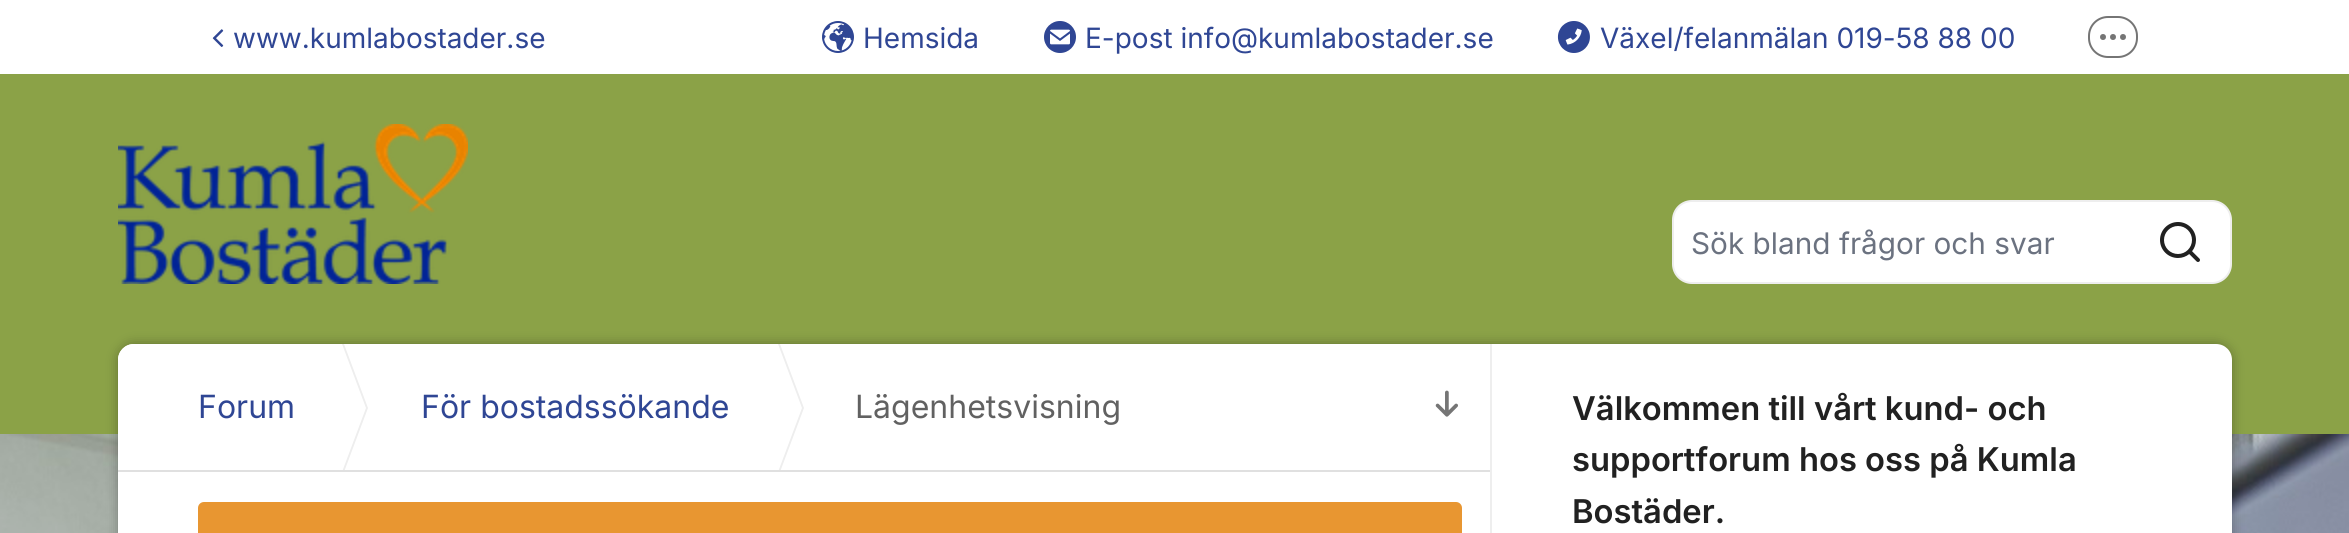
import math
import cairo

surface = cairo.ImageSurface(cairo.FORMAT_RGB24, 2349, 533)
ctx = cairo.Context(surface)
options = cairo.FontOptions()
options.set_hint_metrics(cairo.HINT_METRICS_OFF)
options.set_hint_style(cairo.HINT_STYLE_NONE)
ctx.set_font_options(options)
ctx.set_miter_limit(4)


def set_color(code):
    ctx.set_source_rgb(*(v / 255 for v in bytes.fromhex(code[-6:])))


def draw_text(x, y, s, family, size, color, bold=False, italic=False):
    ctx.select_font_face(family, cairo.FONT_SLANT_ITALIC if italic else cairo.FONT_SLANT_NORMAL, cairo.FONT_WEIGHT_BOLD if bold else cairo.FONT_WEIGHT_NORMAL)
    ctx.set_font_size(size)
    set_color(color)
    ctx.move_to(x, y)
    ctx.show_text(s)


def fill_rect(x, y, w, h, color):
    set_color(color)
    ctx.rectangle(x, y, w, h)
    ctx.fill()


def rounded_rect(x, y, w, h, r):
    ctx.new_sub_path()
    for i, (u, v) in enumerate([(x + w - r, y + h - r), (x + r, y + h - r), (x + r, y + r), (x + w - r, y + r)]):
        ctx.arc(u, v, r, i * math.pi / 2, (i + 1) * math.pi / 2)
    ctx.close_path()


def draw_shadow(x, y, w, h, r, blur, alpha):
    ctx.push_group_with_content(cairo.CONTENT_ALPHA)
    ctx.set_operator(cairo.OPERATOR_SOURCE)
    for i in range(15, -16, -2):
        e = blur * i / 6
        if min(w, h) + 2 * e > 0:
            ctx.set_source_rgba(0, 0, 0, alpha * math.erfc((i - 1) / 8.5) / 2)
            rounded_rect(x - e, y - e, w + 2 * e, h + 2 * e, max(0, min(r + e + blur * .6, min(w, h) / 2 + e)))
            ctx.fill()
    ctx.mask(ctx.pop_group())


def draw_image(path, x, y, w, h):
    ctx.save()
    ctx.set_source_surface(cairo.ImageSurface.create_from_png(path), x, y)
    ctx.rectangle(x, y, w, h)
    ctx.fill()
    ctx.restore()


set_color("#8ba247")
ctx.paint()
fill_rect(0, 0, 2349, 74, "#ffffff")
draw_image("assets/img1.png", 212, 29, 12, 18)
draw_text(233, 48, "www.kumlabostader.se", "Inter", 28, "#2f4694")
draw_image("assets/img2.png", 822, 21, 32, 32)
draw_text(863, 48, "Hemsida", "Inter", 28, "#2f4694")
draw_image("assets/img3.png", 1044, 21, 32, 32)
draw_text(1085, 48, "E-post info@kumlabostader.se", "Inter", 28, "#2f4694")
draw_image("assets/img4.png", 1557, 21, 33, 32)
draw_text(1600, 48, "Växel/felanmälan 019-58 88 00", "Inter", 28, "#2f4694")
rounded_rect(2089, 17, 48, 40, 19)
set_color("#757575")
ctx.stroke()
ctx.arc(2103, 37, 3, 0, 2 * math.pi)
ctx.fill()
ctx.arc(2113, 37, 3, 0, 2 * math.pi)
ctx.fill()
ctx.arc(2123, 37, 3, 0, 2 * math.pi)
ctx.fill()
draw_image("assets/img5.png", 118, 124, 350, 160)
set_color("#ffffff")
rounded_rect(1673, 201, 558, 82, 19)
ctx.fill_preserve()
set_color("#eeeeee")
ctx.stroke()
draw_text(1691, 254, "Sök bland frågor och svar", "Inter", 29.75, "#6b7280")
draw_image("assets/img6.png", 2160, 222, 40, 40)
draw_image("assets/img7.png", 0, 434, 2349, 99)
set_color("#000000")
draw_shadow(118, 344, 2114, 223, 16, 6, 0.3)
set_color("#ffffff")
ctx.new_path()
ctx.move_to(134, 344)
ctx.line_to(2216, 344)
ctx.curve_to(2225, 344, 2232, 351, 2232, 360)
ctx.line_to(2232, 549)
ctx.line_to(118, 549)
ctx.line_to(118, 360)
ctx.curve_to(118, 351, 125, 344, 134, 344)
ctx.close_path()
ctx.fill()
rounded_rect(118, 344, 1374, 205, 16)
ctx.fill()
fill_rect(118, 470, 1374, 2, "#e0e0e0")
ctx.save()
ctx.rectangle(118, 344, 1374, 126)
ctx.clip()
set_color("#eeeeee")
ctx.new_path()
ctx.move_to(338, 488)
ctx.line_to(338, 328)
ctx.line_to(368, 408)
ctx.close_path()
ctx.fill()
set_color("#ffffff")
ctx.new_path()
ctx.move_to(336, 488)
ctx.line_to(336, 328)
ctx.line_to(366, 408)
ctx.close_path()
ctx.fill()
ctx.restore()
draw_text(198, 418, "Forum", "Inter", 32, "#2f4694")
ctx.save()
ctx.rectangle(118, 344, 1374, 126)
ctx.clip()
set_color("#eeeeee")
ctx.new_path()
ctx.move_to(774, 488)
ctx.line_to(774, 328)
ctx.line_to(804, 408)
ctx.close_path()
ctx.fill()
set_color("#ffffff")
ctx.new_path()
ctx.move_to(772, 488)
ctx.line_to(772, 328)
ctx.line_to(802, 408)
ctx.close_path()
ctx.fill()
ctx.restore()
draw_text(421, 418, "För bostadssökande", "Inter", 32, "#2f4694")
draw_text(855, 418, "Lägenhetsvisning", "Inter", 32, "#616161")
draw_image("assets/img8.png", 1435, 390, 23, 27)
set_color("#e89631")
rounded_rect(198, 502, 1264, 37, 6)
ctx.fill()
fill_rect(1490, 344, 2, 189, "#eeeeee")
draw_text(1572, 420, "Välkommen till vårt kund- och", "Inter SemiBold", 32.75, "#212121")
draw_text(1572, 471, "supportforum hos oss på Kumla", "Inter SemiBold", 32.75, "#212121")
draw_text(1572, 523, "Bostäder.", "Inter SemiBold", 32.75, "#212121")
surface.write_to_png("output.png")
